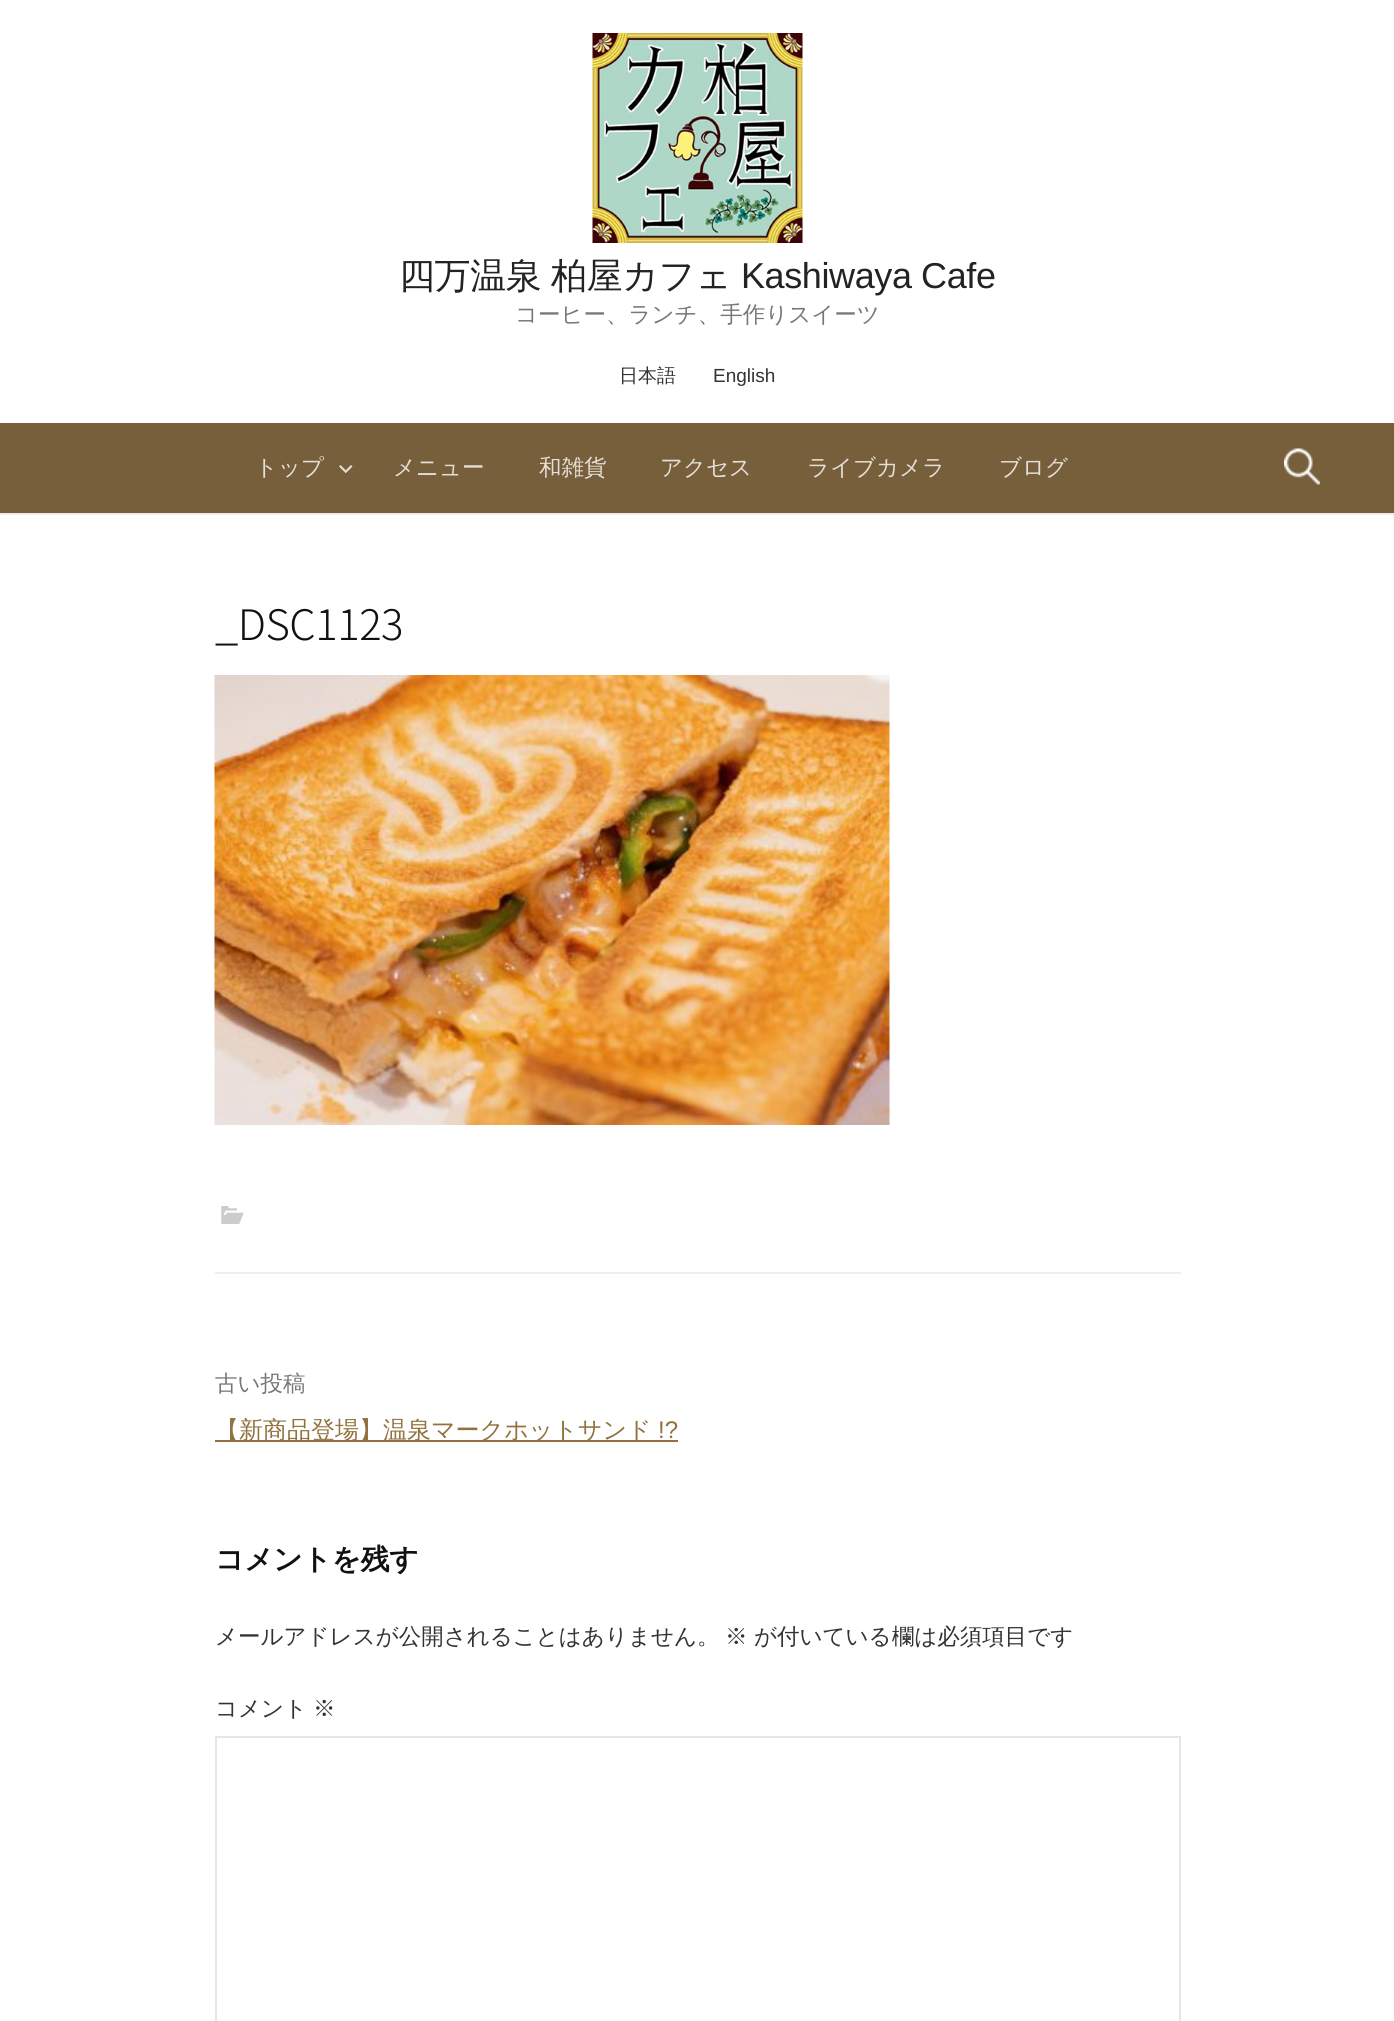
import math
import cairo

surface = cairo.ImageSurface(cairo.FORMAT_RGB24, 1394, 2021)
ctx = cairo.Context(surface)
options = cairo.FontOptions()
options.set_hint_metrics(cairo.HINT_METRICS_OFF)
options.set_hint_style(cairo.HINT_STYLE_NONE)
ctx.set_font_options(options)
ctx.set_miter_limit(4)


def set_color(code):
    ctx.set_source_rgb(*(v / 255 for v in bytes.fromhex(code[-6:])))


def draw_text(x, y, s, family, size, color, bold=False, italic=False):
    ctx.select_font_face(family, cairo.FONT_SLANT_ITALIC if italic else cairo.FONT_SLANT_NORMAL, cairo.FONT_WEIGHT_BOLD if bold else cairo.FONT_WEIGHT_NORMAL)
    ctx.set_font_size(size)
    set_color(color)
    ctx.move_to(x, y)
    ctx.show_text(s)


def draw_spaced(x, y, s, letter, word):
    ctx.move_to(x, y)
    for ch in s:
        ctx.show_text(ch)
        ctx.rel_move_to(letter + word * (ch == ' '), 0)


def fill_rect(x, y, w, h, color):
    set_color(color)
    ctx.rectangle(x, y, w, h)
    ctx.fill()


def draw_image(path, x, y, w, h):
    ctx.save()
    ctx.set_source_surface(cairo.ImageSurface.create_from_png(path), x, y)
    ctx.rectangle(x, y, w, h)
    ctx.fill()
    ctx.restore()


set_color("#ffffff")
ctx.paint()
fill_rect(0, 513, 1394, 2, "#eeeeee")
draw_image("assets/img1.png", 592, 33, 211, 210)
ctx.select_font_face("WenQuanYi Zen Hei Medium")
ctx.set_font_size(36)
set_color("#232323")
draw_spaced(399, 288, "四万温泉", -0.4, 0)
draw_spaced(551, 288, "柏屋カフェ", -0.4, 0)
ctx.select_font_face("Liberation Sans")
draw_spaced(741, 288, "Kashiwaya Cafe", -0.4, 0)
draw_text(515, 322, "コーヒー、ランチ、手作りスイーツ", "WenQuanYi Zen Hei Medium", 22.5, "#777777")
draw_text(619, 382, "日本語", "WenQuanYi Zen Hei Medium", 19, "#333333")
draw_text(713, 382, "English", "Liberation Sans", 19, "#333333")
fill_rect(0, 423, 1394, 90, "#775f3b")
draw_text(255, 475, "トップ", "WenQuanYi Zen Hei Medium", 22.5, "#e4dfd8")
draw_image("assets/img2.png", 339, 465, 14, 9)
draw_text(393, 475, "メニュー", "WenQuanYi Zen Hei Medium", 22.5, "#e4dfd8")
draw_text(539, 475, "和雑貨", "WenQuanYi Zen Hei Medium", 22.5, "#e4dfd8")
draw_text(660, 475, "アクセス", "WenQuanYi Zen Hei Medium", 22.5, "#e4dfd8")
draw_text(807, 475, "ライブカメラ", "WenQuanYi Zen Hei Medium", 22.5, "#e4dfd8")
draw_text(999, 475, "ブログ", "WenQuanYi Zen Hei Medium", 22.5, "#e4dfd8")
draw_image("assets/img3.png", 1284, 448, 36, 37)
fill_rect(215, 1272, 966, 2, "#eeeeee")
ctx.select_font_face("Noto Sans JP Light")
ctx.set_font_size(42)
set_color("#111111")
draw_spaced(215, 640, "_DSC1123", -0.5, 0)
draw_image("assets/img4.png", 214, 675, 676, 450)
draw_image("assets/img5.png", 221, 1206, 23, 18)
draw_text(215, 1391, "古い投稿", "WenQuanYi Zen Hei Medium", 22.5, "#777777")
fill_rect(215, 1440, 463, 2, "#91713d")
draw_text(215, 1438, "【新商品登場】温泉マークホットサンド", "WenQuanYi Zen Hei Medium", 24, "#91713d")
draw_text(658, 1438, "!?", "Liberation Sans", 24, "#91713d")
ctx.select_font_face("WenQuanYi Zen Hei", cairo.FONT_SLANT_NORMAL, cairo.FONT_WEIGHT_BOLD)
ctx.set_font_size(28.75)
set_color("#111111")
draw_spaced(215, 1569, "コメントを残す", -0.25, 0)
draw_text(215, 1644, "メールアドレスが公開されることはありません。", "WenQuanYi Zen Hei Medium", 22.5, "#333333")
draw_text(725, 1644, "※", "WenQuanYi Zen Hei Medium", 22.5, "#333333")
draw_text(754, 1644, "が付いている欄は必須項目です", "WenQuanYi Zen Hei Medium", 22.5, "#333333")
draw_text(215, 1716, "コメント", "WenQuanYi Zen Hei Medium", 22.5, "#333333")
draw_text(313, 1716, "※", "WenQuanYi Zen Hei Medium", 22.5, "#333333")
ctx.rectangle(216, 1737, 964, 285)
set_color("#e6e6e6")
ctx.stroke()
surface.write_to_png("output.png")
